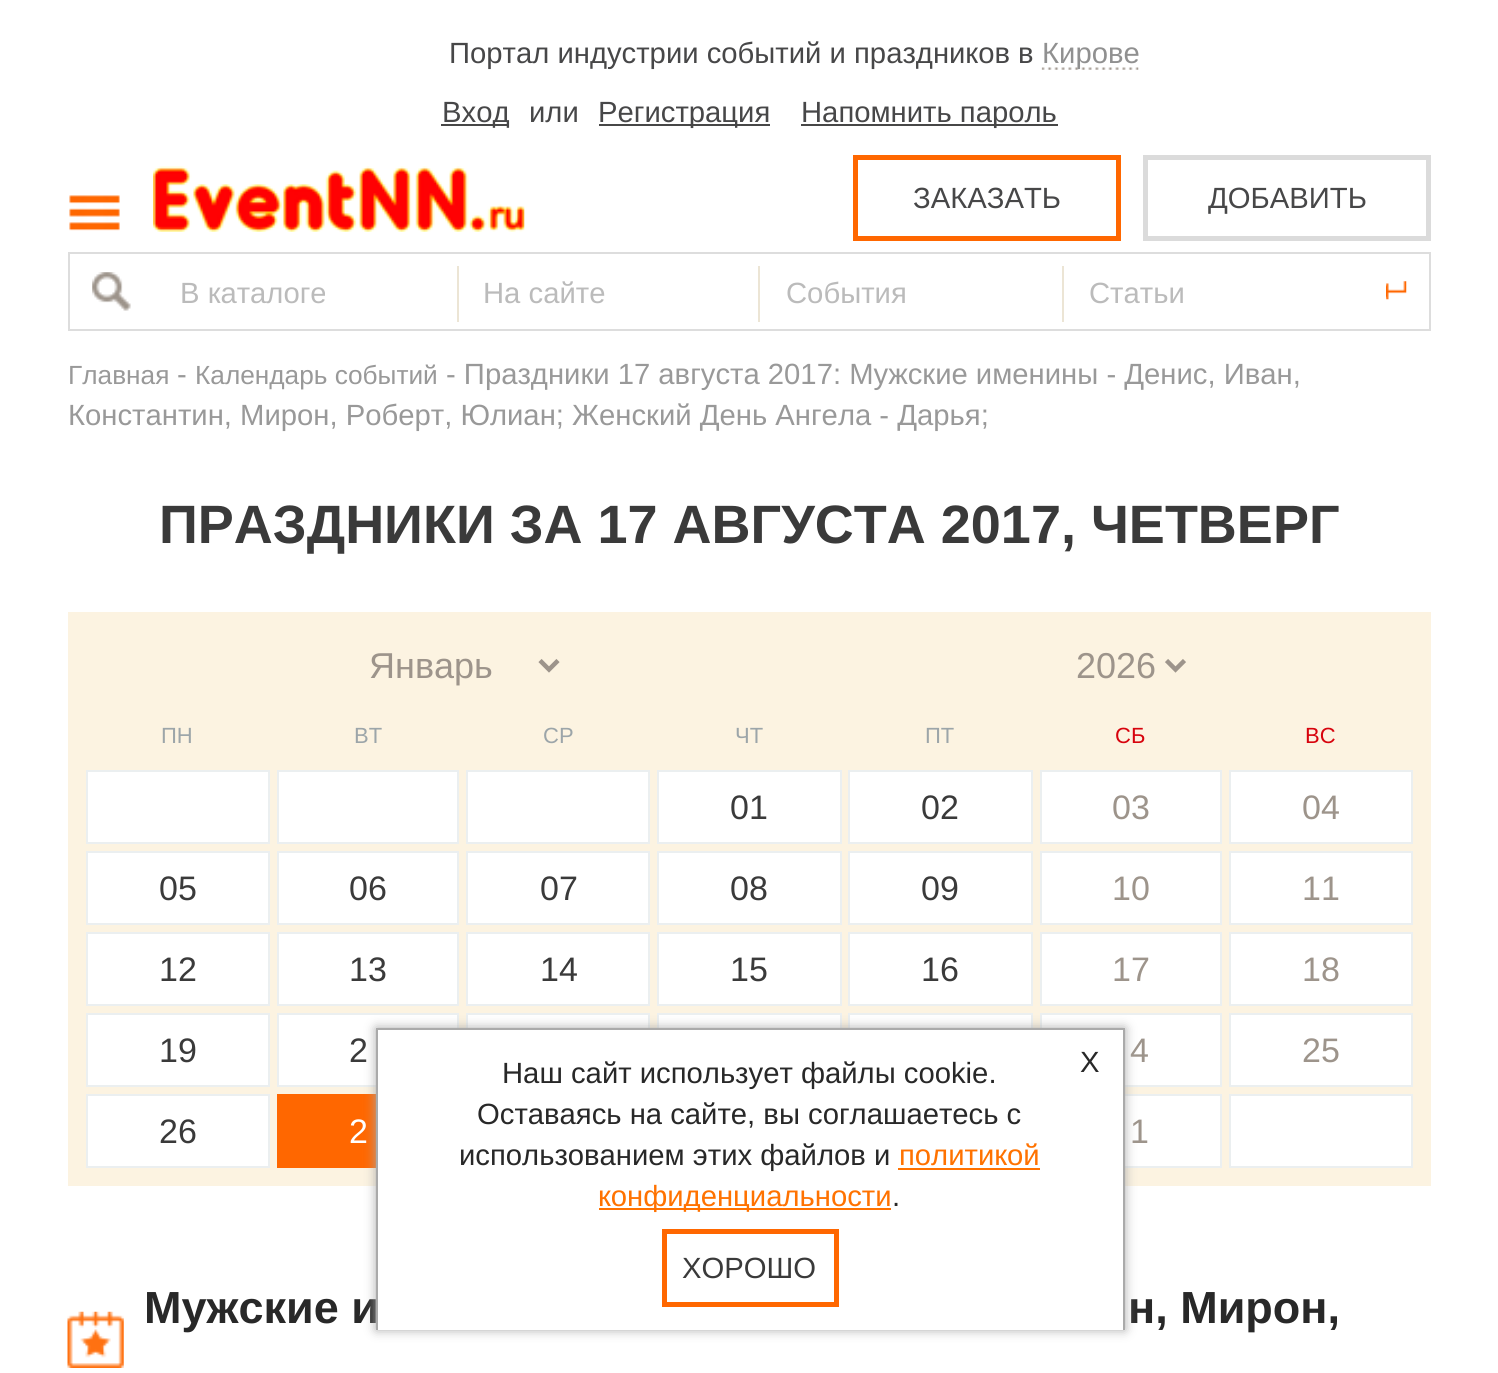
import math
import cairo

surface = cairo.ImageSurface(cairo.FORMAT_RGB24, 1498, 1373)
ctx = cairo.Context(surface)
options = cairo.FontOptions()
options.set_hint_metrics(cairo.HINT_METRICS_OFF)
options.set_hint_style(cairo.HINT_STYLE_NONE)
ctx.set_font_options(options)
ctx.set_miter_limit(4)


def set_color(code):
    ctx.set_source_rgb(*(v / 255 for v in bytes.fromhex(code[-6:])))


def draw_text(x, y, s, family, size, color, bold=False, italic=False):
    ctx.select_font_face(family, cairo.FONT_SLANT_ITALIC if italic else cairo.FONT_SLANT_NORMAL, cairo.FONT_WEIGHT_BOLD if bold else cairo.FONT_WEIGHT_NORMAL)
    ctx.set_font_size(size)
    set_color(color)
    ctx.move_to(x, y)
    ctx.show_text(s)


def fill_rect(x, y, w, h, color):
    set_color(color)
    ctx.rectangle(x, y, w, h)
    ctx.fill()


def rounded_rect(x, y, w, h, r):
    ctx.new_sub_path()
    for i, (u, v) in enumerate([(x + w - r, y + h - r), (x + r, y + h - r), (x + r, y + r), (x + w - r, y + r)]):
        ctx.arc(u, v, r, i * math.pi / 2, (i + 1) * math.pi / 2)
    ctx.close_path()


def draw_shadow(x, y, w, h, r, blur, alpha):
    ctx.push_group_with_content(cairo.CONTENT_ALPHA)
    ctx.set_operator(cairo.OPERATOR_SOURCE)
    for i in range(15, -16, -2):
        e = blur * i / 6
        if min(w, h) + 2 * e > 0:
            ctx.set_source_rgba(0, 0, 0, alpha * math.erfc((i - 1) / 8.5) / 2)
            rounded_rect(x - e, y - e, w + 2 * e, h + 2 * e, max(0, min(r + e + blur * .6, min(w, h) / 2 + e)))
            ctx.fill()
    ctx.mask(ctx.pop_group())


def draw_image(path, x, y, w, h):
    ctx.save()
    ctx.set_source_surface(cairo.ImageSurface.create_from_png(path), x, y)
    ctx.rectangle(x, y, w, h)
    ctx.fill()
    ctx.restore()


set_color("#ffffff")
ctx.paint()
draw_text(449, 63, "Портал индустрии событий и праздников в", "Liberation Sans", 29.25, "#474748")
draw_image("assets/img1.png", 1041, 67, 98, 3)
draw_text(1042, 63, "Кирове", "Liberation Sans", 29.25, "#909090")
fill_rect(441, 124, 68, 2, "#474747")
draw_text(442, 122, "Вход", "Liberation Sans", 29.25, "#474748")
draw_text(529, 122, "или", "Liberation Sans", 29.25, "#474748")
fill_rect(599, 124, 171, 2, "#474747")
draw_text(598, 122, "Регистрация", "Liberation Sans", 29.25, "#474748")
fill_rect(801, 124, 257, 2, "#474747")
draw_text(801, 122, "Напомнить пароль", "Liberation Sans", 29.25, "#474748")
draw_image("assets/img2.png", 69, 195, 51, 36)
draw_image("assets/img3.png", 153, 166, 372, 66)
ctx.rectangle(855.5, 157.5, 263, 81)
set_color("#ff6700")
ctx.set_line_width(5)
ctx.stroke()
draw_text(913, 208, "ЗАКАЗАТЬ", "Liberation Sans", 29.25, "#474748")
ctx.rectangle(1145.5, 157.5, 283, 81)
set_color("#dbdbdb")
ctx.stroke()
draw_text(1208, 208, "ДОБАВИТЬ", "Liberation Sans", 29.25, "#474748")
ctx.rectangle(69, 253, 1361, 77)
set_color("#dddddd")
ctx.set_line_width(2)
ctx.stroke()
draw_image("assets/img4.png", 92, 272, 39, 39)
fill_rect(457, 266, 2, 56, "#ece5d5")
draw_text(180, 303, "В каталоге", "Liberation Sans", 29.25, "#bbbbbb")
fill_rect(758, 266, 2, 56, "#ece5d5")
draw_text(483, 303, "На сайте", "Liberation Sans", 29.25, "#bbbbbb")
fill_rect(1062, 266, 2, 56, "#ece5d5")
draw_text(786, 303, "События", "Liberation Sans", 29.25, "#bbbbbb")
draw_text(1089, 303, "Статьи", "Liberation Sans", 29.25, "#bbbbbb")
draw_image("assets/img5.png", 1386, 281, 21, 19)
draw_text(68, 384, "Главная", "Liberation Sans", 26.25, "#999999")
draw_text(177, 384, "-", "Liberation Sans", 29.25, "#999999")
draw_text(195, 384, "Календарь событий", "Liberation Sans", 26.25, "#999999")
draw_text(446, 384, "- Праздники 17 августа 2017: Мужские именины - Денис, Иван,", "Liberation Sans", 29.25, "#999999")
draw_text(68, 425, "Константин, Мирон, Роберт, Юлиан; Женский День Ангела - Дарья;", "Liberation Sans", 29.25, "#999999")
draw_text(159, 543, "ПРАЗДНИКИ ЗА 17 АВГУСТА 2017, ЧЕТВЕРГ", "Liberation Sans", 54, "#3a3a3a", bold=True)
fill_rect(68, 612, 1363, 574, "#fcf3e1")
ctx.new_path()
ctx.move_to(540, 660.5)
ctx.line_to(549, 669.5)
ctx.line_to(558, 660.5)
set_color("#9d948b")
ctx.set_line_width(4.5)
ctx.stroke()
draw_text(369, 678, "Январь", "Liberation Sans", 36, "#9d948b")
ctx.new_path()
ctx.move_to(1166.5, 660.5)
ctx.line_to(1175.5, 669.5)
ctx.line_to(1184.5, 660.5)
ctx.stroke()
draw_text(1076, 678, "2026", "Liberation Sans", 36, "#9d948b")
draw_text(161, 743, "ПН", "Liberation Sans", 22, "#9ca5a9")
draw_text(354, 743, "ВТ", "Liberation Sans", 22, "#9ca5a9")
draw_text(543, 743, "СР", "Liberation Sans", 22, "#9ca5a9")
draw_text(735, 743, "ЧТ", "Liberation Sans", 22, "#9ca5a9")
draw_text(925, 743, "ПТ", "Liberation Sans", 22, "#9ca5a9")
draw_text(1115, 743, "СБ", "Liberation Sans", 22, "#d7030d")
draw_text(1305, 743, "ВС", "Liberation Sans", 22, "#d7030d")
set_color("#ffffff")
ctx.rectangle(87, 771, 182, 72)
ctx.fill_preserve()
set_color("#ebeff0")
ctx.set_line_width(2)
ctx.stroke()
set_color("#ffffff")
ctx.rectangle(278, 771, 180, 72)
ctx.fill_preserve()
set_color("#ebeff0")
ctx.stroke()
set_color("#ffffff")
ctx.rectangle(467, 771, 182, 72)
ctx.fill_preserve()
set_color("#ebeff0")
ctx.stroke()
set_color("#ffffff")
ctx.rectangle(658, 771, 183, 72)
ctx.fill_preserve()
set_color("#ebeff0")
ctx.stroke()
draw_text(730, 819, "01", "Liberation Sans", 34, "#3a3a3a")
set_color("#ffffff")
ctx.rectangle(849, 771, 183, 72)
ctx.fill_preserve()
set_color("#ebeff0")
ctx.stroke()
draw_text(921, 819, "02", "Liberation Sans", 34, "#3a3a3a")
set_color("#ffffff")
ctx.rectangle(1041, 771, 180, 72)
ctx.fill_preserve()
set_color("#ebeff0")
ctx.stroke()
draw_text(1112, 819, "03", "Liberation Sans", 34, "#9d948b")
set_color("#ffffff")
ctx.rectangle(1230, 771, 182, 72)
ctx.fill_preserve()
set_color("#ebeff0")
ctx.stroke()
draw_text(1302, 819, "04", "Liberation Sans", 34, "#9d948b")
set_color("#ffffff")
ctx.rectangle(87, 852, 182, 72)
ctx.fill_preserve()
set_color("#ebeff0")
ctx.stroke()
draw_text(159, 900, "05", "Liberation Sans", 34, "#3a3a3a")
set_color("#ffffff")
ctx.rectangle(278, 852, 180, 72)
ctx.fill_preserve()
set_color("#ebeff0")
ctx.stroke()
draw_text(349, 900, "06", "Liberation Sans", 34, "#3a3a3a")
set_color("#ffffff")
ctx.rectangle(467, 852, 182, 72)
ctx.fill_preserve()
set_color("#ebeff0")
ctx.stroke()
draw_text(540, 900, "07", "Liberation Sans", 34, "#3a3a3a")
set_color("#ffffff")
ctx.rectangle(658, 852, 183, 72)
ctx.fill_preserve()
set_color("#ebeff0")
ctx.stroke()
draw_text(730, 900, "08", "Liberation Sans", 34, "#3a3a3a")
set_color("#ffffff")
ctx.rectangle(849, 852, 183, 72)
ctx.fill_preserve()
set_color("#ebeff0")
ctx.stroke()
draw_text(921, 900, "09", "Liberation Sans", 34, "#3a3a3a")
set_color("#ffffff")
ctx.rectangle(1041, 852, 180, 72)
ctx.fill_preserve()
set_color("#ebeff0")
ctx.stroke()
draw_text(1112, 900, "10", "Liberation Sans", 34, "#9d948b")
set_color("#ffffff")
ctx.rectangle(1230, 852, 182, 72)
ctx.fill_preserve()
set_color("#ebeff0")
ctx.stroke()
draw_text(1302, 900, "11", "Liberation Sans", 34, "#9d948b")
set_color("#ffffff")
ctx.rectangle(87, 933, 182, 72)
ctx.fill_preserve()
set_color("#ebeff0")
ctx.stroke()
draw_text(159, 981, "12", "Liberation Sans", 34, "#3a3a3a")
set_color("#ffffff")
ctx.rectangle(278, 933, 180, 72)
ctx.fill_preserve()
set_color("#ebeff0")
ctx.stroke()
draw_text(349, 981, "13", "Liberation Sans", 34, "#3a3a3a")
set_color("#ffffff")
ctx.rectangle(467, 933, 182, 72)
ctx.fill_preserve()
set_color("#ebeff0")
ctx.stroke()
draw_text(540, 981, "14", "Liberation Sans", 34, "#3a3a3a")
set_color("#ffffff")
ctx.rectangle(658, 933, 183, 72)
ctx.fill_preserve()
set_color("#ebeff0")
ctx.stroke()
draw_text(730, 981, "15", "Liberation Sans", 34, "#3a3a3a")
set_color("#ffffff")
ctx.rectangle(849, 933, 183, 72)
ctx.fill_preserve()
set_color("#ebeff0")
ctx.stroke()
draw_text(921, 981, "16", "Liberation Sans", 34, "#3a3a3a")
set_color("#ffffff")
ctx.rectangle(1041, 933, 180, 72)
ctx.fill_preserve()
set_color("#ebeff0")
ctx.stroke()
draw_text(1112, 981, "17", "Liberation Sans", 34, "#9d948b")
set_color("#ffffff")
ctx.rectangle(1230, 933, 182, 72)
ctx.fill_preserve()
set_color("#ebeff0")
ctx.stroke()
draw_text(1302, 981, "18", "Liberation Sans", 34, "#9d948b")
set_color("#ffffff")
ctx.rectangle(87, 1014, 182, 72)
ctx.fill_preserve()
set_color("#ebeff0")
ctx.stroke()
draw_text(159, 1062, "19", "Liberation Sans", 34, "#3a3a3a")
set_color("#ffffff")
ctx.rectangle(278, 1014, 180, 72)
ctx.fill_preserve()
set_color("#ebeff0")
ctx.stroke()
draw_text(349, 1062, "2", "Liberation Sans", 34, "#3a3a3a")
fill_rect(468, 1015, 180, 13, "#ffffff")
ctx.rectangle(467, 1014, 182, 72)
set_color("#ebeff0")
ctx.stroke()
fill_rect(659, 1015, 181, 13, "#ffffff")
ctx.rectangle(658, 1014, 183, 72)
set_color("#ebeff0")
ctx.stroke()
fill_rect(850, 1015, 181, 13, "#ffffff")
ctx.rectangle(849, 1014, 183, 72)
set_color("#ebeff0")
ctx.stroke()
set_color("#ffffff")
ctx.rectangle(1041, 1014, 180, 72)
ctx.fill_preserve()
set_color("#ebeff0")
ctx.stroke()
draw_text(1130, 1062, "4", "Liberation Sans", 34, "#9d948b")
set_color("#ffffff")
ctx.rectangle(1230, 1014, 182, 72)
ctx.fill_preserve()
set_color("#ebeff0")
ctx.stroke()
draw_text(1302, 1062, "25", "Liberation Sans", 34, "#9d948b")
set_color("#ffffff")
ctx.rectangle(87, 1095, 182, 72)
ctx.fill_preserve()
set_color("#ebeff0")
ctx.stroke()
draw_text(159, 1143, "26", "Liberation Sans", 34, "#3a3a3a")
fill_rect(277, 1094, 99, 74, "#ff6700")
draw_text(349, 1143, "2", "Liberation Sans", 34, "#ffffff")
fill_rect(1125, 1096, 95, 70, "#ffffff")
ctx.rectangle(1041, 1095, 180, 72)
set_color("#ebeff0")
ctx.stroke()
draw_text(1130, 1143, "1", "Liberation Sans", 34, "#9d948b")
set_color("#ffffff")
ctx.rectangle(1230, 1095, 182, 72)
ctx.fill_preserve()
set_color("#ebeff0")
ctx.stroke()
draw_image("assets/img6.png", 67, 1311, 57, 57)
draw_text(144, 1323, "Мужские и", "Liberation Sans", 45, "#282828", bold=True)
draw_text(1128, 1323, "н, Мирон,", "Liberation Sans", 45, "#282828", bold=True)
set_color("#aaaaaa")
draw_shadow(376, 1028, 749, 302, 0, 5.5, 1)
fill_rect(378, 1030, 745, 300, "#ffffff")
fill_rect(376, 1028, 749, 2, "#aaaaaa")
fill_rect(1123, 1028, 2, 302, "#aaaaaa")
fill_rect(376, 1028, 2, 302, "#aaaaaa")
draw_text(502, 1083, "Наш сайт использует файлы cookie.", "Liberation Sans", 29.25, "#282828")
draw_text(477, 1124, "Оставаясь на сайте, вы соглашаетесь с", "Liberation Sans", 29.25, "#282828")
draw_text(459, 1165, "использованием этих файлов и", "Liberation Sans", 29.25, "#282828")
draw_text(899, 1165, "политикой", "Liberation Sans", 29.25, "#ff7200")
fill_rect(898, 1168, 142, 2, "#ff7200")
fill_rect(599, 1208, 292, 2, "#ff7200")
draw_text(598, 1206, "конфиденциальности", "Liberation Sans", 29.25, "#ff7200")
draw_text(892, 1206, ".", "Liberation Sans", 29.25, "#282828")
draw_text(1080, 1072, "X", "Liberation Sans", 29.25, "#282828")
ctx.rectangle(664.5, 1231.5, 172, 73)
set_color("#ff6700")
ctx.set_line_width(5)
ctx.stroke()
draw_text(682, 1278, "ХОРОШО", "Liberation Sans", 29.25, "#3a3a3a")
surface.write_to_png("output.png")
